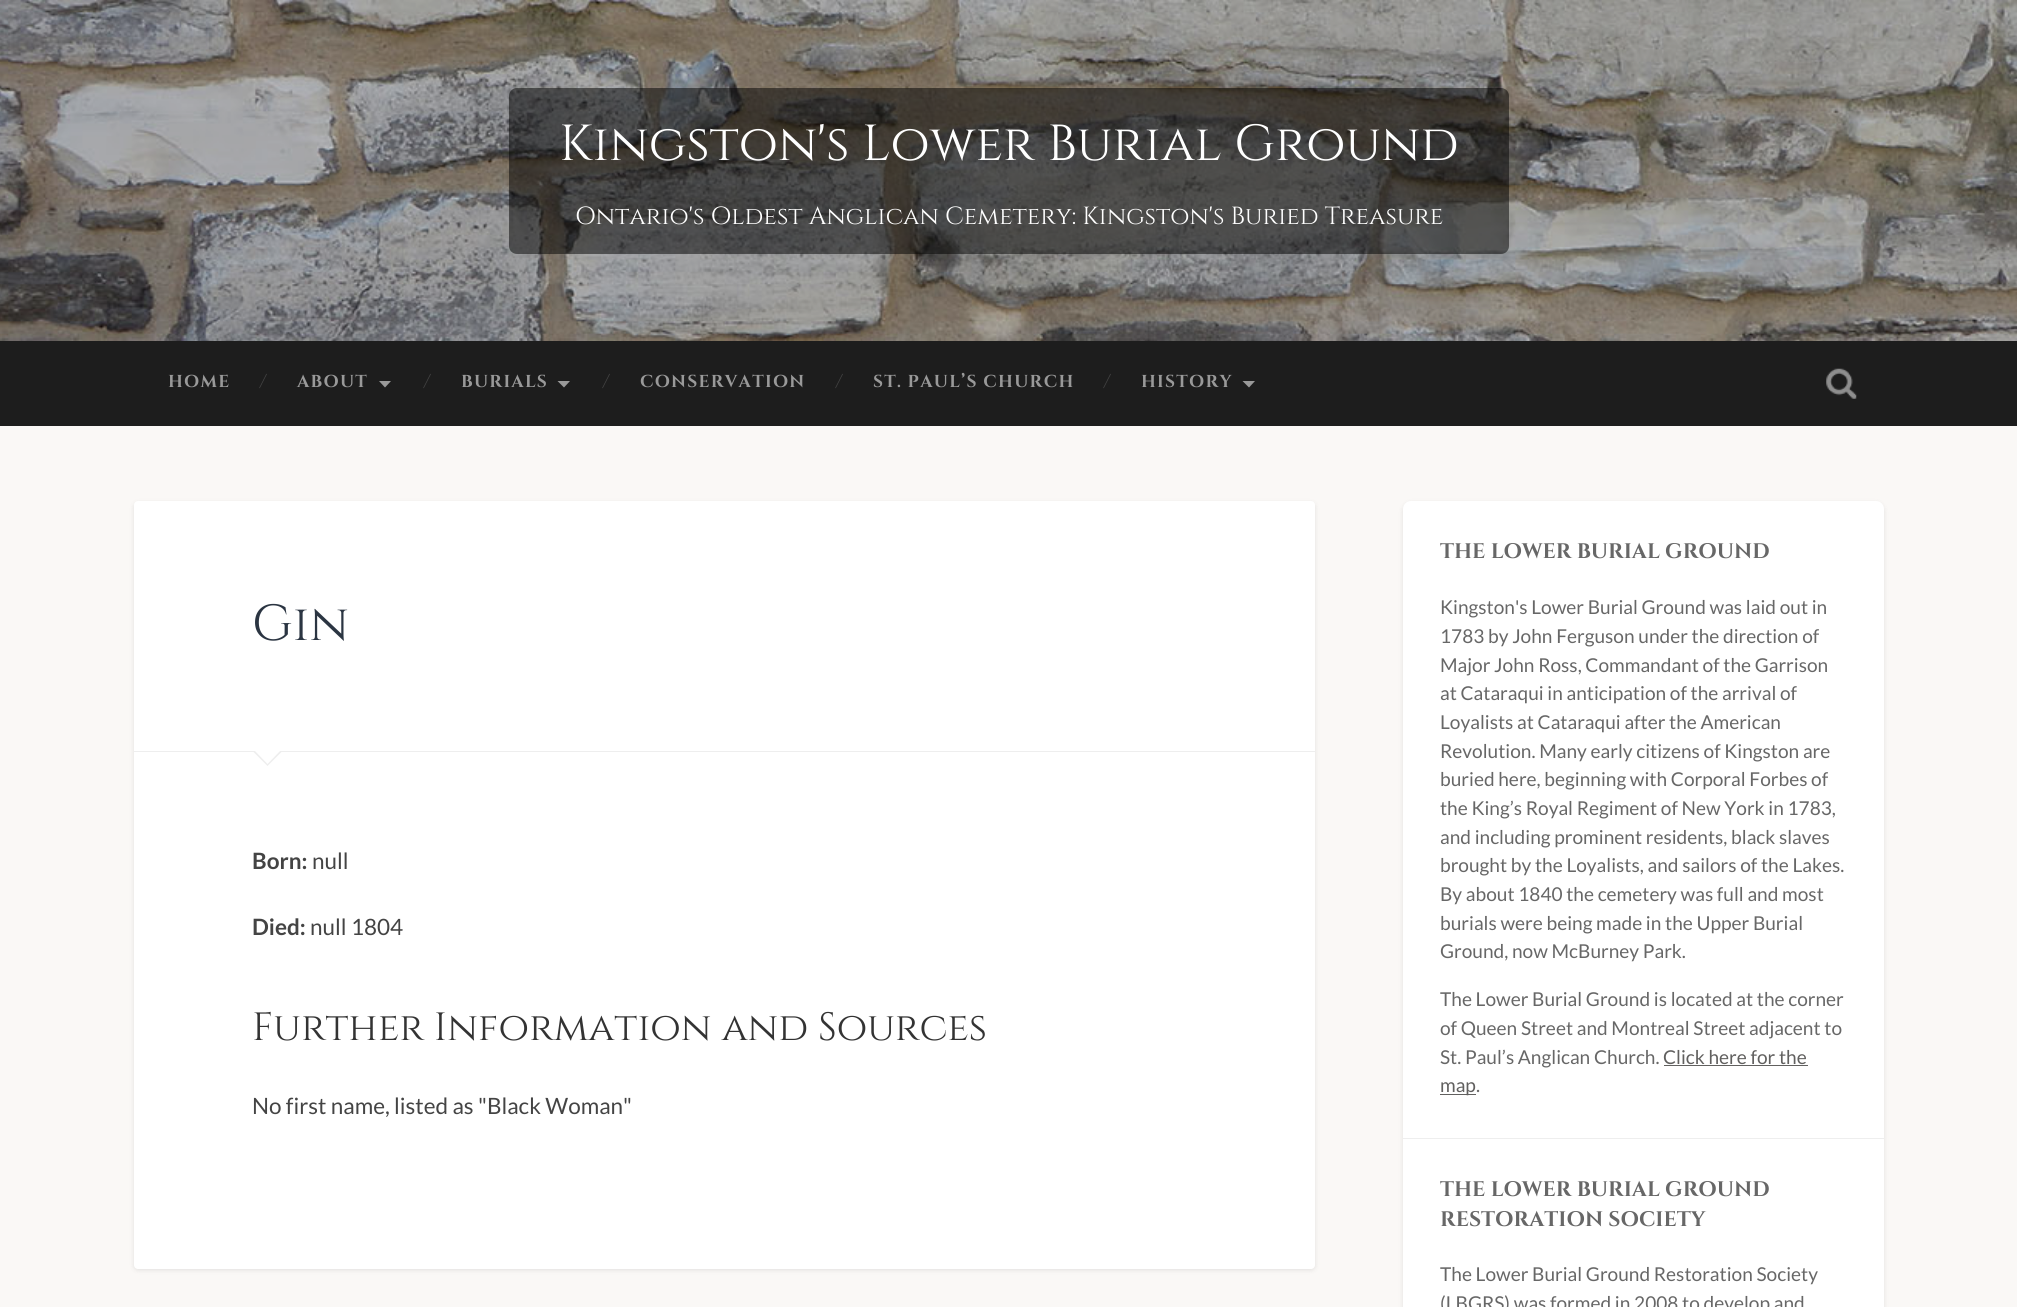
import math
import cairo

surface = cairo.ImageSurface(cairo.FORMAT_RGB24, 2017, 1307)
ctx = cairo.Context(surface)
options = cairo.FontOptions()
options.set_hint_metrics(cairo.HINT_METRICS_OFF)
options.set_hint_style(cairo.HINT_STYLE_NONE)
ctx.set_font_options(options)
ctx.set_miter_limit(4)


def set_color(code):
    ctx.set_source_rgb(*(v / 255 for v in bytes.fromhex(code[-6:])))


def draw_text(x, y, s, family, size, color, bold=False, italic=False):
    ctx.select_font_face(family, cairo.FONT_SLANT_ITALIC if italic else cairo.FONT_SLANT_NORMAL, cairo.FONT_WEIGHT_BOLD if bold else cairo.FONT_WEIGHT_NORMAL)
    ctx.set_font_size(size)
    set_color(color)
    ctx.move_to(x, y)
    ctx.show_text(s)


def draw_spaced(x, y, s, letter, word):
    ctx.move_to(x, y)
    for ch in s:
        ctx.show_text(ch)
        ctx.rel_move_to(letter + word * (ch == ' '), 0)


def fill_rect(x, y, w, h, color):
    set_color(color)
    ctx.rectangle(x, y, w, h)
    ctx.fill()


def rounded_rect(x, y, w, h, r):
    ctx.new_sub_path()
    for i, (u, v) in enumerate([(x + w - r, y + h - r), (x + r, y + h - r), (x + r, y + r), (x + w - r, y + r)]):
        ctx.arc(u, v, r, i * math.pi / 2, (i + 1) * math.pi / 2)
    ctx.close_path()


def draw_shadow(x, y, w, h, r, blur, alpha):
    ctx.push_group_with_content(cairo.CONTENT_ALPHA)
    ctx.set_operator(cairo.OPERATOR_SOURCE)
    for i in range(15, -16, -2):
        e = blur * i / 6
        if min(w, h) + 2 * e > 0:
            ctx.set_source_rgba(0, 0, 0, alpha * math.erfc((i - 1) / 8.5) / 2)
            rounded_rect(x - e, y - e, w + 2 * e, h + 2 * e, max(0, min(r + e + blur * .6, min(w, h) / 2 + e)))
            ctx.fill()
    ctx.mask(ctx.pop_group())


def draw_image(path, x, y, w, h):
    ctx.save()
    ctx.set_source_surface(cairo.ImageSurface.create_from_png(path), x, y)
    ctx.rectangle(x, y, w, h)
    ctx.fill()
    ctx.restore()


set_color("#faf8f6")
ctx.paint()
draw_image("assets/img1.png", 0, 0, 2017, 341)
ctx.set_source_rgba(0, 0, 0, 0.5)
rounded_rect(509, 88, 1000, 166, 8)
ctx.fill()
draw_text(559, 160, "Kingston's Lower Burial Ground", "Cinzel", 50.6, "#ffffff")
draw_text(575, 224, "Ontario's Oldest Anglican Cemetery: Kingston's Buried Treasure", "Cinzel", 24.75, "#ffffff")
fill_rect(0, 341, 2017, 85, "#1d1d1d")
ctx.select_font_face("Cinzel", cairo.FONT_SLANT_NORMAL, cairo.FONT_WEIGHT_BOLD)
ctx.set_font_size(17.25)
set_color("#999999")
draw_spaced(168, 387, "HOME", 1.25, 0)
draw_text(259, 388, "/", "Cinzel", 20, "#444444")
ctx.select_font_face("Cinzel", cairo.FONT_SLANT_NORMAL, cairo.FONT_WEIGHT_BOLD)
ctx.set_font_size(17.25)
set_color("#999999")
draw_spaced(297, 387, "ABOUT", 1.25, 0)
ctx.new_path()
ctx.move_to(379, 381)
ctx.line_to(391, 381)
ctx.line_to(385, 387.5)
ctx.close_path()
ctx.fill()
draw_text(423, 388, "/", "Cinzel", 20, "#444444")
ctx.select_font_face("Cinzel", cairo.FONT_SLANT_NORMAL, cairo.FONT_WEIGHT_BOLD)
ctx.set_font_size(17.25)
set_color("#999999")
draw_spaced(461, 387, "BURIALS", 1.25, 0)
ctx.new_path()
ctx.move_to(557.5, 381)
ctx.line_to(570, 381)
ctx.line_to(564, 387.5)
ctx.close_path()
ctx.fill()
draw_text(602, 388, "/", "Cinzel", 20, "#444444")
ctx.select_font_face("Cinzel", cairo.FONT_SLANT_NORMAL, cairo.FONT_WEIGHT_BOLD)
ctx.set_font_size(17.25)
set_color("#999999")
draw_spaced(640, 387, "CONSERVATION", 1.25, 0)
draw_text(835, 388, "/", "Cinzel", 20, "#444444")
ctx.select_font_face("Cinzel", cairo.FONT_SLANT_NORMAL, cairo.FONT_WEIGHT_BOLD)
ctx.set_font_size(17.25)
set_color("#999999")
draw_spaced(873, 387, "ST. PAUL’S CHURCH", 1.25, 0)
draw_text(1103, 388, "/", "Cinzel", 20, "#444444")
ctx.select_font_face("Cinzel", cairo.FONT_SLANT_NORMAL, cairo.FONT_WEIGHT_BOLD)
ctx.set_font_size(17.25)
set_color("#999999")
draw_spaced(1141, 387, "HISTORY", 1.25, 0)
ctx.new_path()
ctx.move_to(1242.5, 381)
ctx.line_to(1255, 381)
ctx.line_to(1249, 387.5)
ctx.close_path()
ctx.fill()
draw_image("assets/img2.png", 1826, 368, 31, 31)
set_color("#000000")
draw_shadow(134, 503, 1181, 767, 4, 2.5, 0.1)
set_color("#ffffff")
rounded_rect(134, 501, 1181, 768, 4)
ctx.fill()
fill_rect(134, 751, 1181, 1, "#eeeeee")
draw_text(252, 640, "Gin", "Cinzel", 50.6, "#2b3542")
set_color("#eeeeee")
ctx.new_path()
ctx.move_to(252.5, 751)
ctx.line_to(282.5, 751)
ctx.line_to(267.5, 766)
ctx.close_path()
ctx.fill()
set_color("#ffffff")
ctx.new_path()
ctx.move_to(254, 750)
ctx.line_to(281, 750)
ctx.line_to(267.5, 764)
ctx.close_path()
ctx.fill()
draw_text(252, 869, "Born:", "Lato", 22.5, "#444444", bold=True)
draw_text(312, 869, "null", "Lato", 22.5, "#444444")
draw_text(252, 935, "Died:", "Lato", 22.5, "#444444", bold=True)
draw_text(310, 935, "null 1804", "Lato", 22.5, "#444444")
draw_text(252, 1040, "Further Information and Sources", "Cinzel", 39.4, "#333333")
draw_text(252, 1114, "No first name, listed as \"Black Woman\"", "Lato", 22.5, "#444444")
set_color("#000000")
draw_shadow(1403, 503, 481, 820, 8, 2.5, 0.1)
set_color("#ffffff")
rounded_rect(1403, 501, 481, 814, 8)
ctx.fill()
draw_text(1440, 558, "THE LOWER BURIAL GROUND", "Cinzel", 21, "#676767", bold=True)
draw_text(1440, 614, "Kingston's Lower Burial Ground was laid out in", "Lato", 19.1, "#676767")
draw_text(1440, 643, "1783 by John Ferguson under the direction of", "Lato", 19.1, "#676767")
draw_text(1440, 672, "Major John Ross, Commandant of the Garrison", "Lato", 19.1, "#676767")
draw_text(1440, 700, "at Cataraqui in anticipation of the arrival of", "Lato", 19.1, "#676767")
draw_text(1440, 729, "Loyalists at Cataraqui after the American", "Lato", 19.1, "#676767")
draw_text(1440, 758, "Revolution. Many early citizens of Kingston are", "Lato", 19.1, "#676767")
draw_text(1440, 786, "buried here, beginning with Corporal Forbes of", "Lato", 19.1, "#676767")
draw_text(1440, 815, "the King’s Royal Regiment of New York in 1783,", "Lato", 19.1, "#676767")
draw_text(1440, 844, "and including prominent residents, black slaves", "Lato", 19.1, "#676767")
draw_text(1440, 872, "brought by the Loyalists, and sailors of the Lakes.", "Lato", 19.1, "#676767")
draw_text(1440, 901, "By about 1840 the cemetery was full and most", "Lato", 19.1, "#676767")
draw_text(1440, 930, "burials were being made in the Upper Burial", "Lato", 19.1, "#676767")
draw_text(1440, 958, "Ground, now McBurney Park.", "Lato", 19.1, "#676767")
draw_text(1440, 1006, "The Lower Burial Ground is located at the corner", "Lato", 19.1, "#676767")
draw_text(1440, 1035, "of Queen Street and Montreal Street adjacent to", "Lato", 19.1, "#676767")
draw_text(1440, 1064, "St. Paul’s Anglican Church.", "Lato", 19.1, "#676767")
draw_text(1663, 1064, "Click here for the", "Lato", 19.1, "#61605f")
fill_rect(1664, 1065, 144, 1, "#61605f")
fill_rect(1440, 1094, 36, 1, "#61605f")
draw_text(1440, 1092, "map", "Lato", 19.1, "#61605f")
draw_text(1476, 1092, ".", "Lato", 19.1, "#676767")
fill_rect(1403, 1138, 481, 1, "#eeeeee")
draw_text(1440, 1196, "THE LOWER BURIAL GROUND", "Cinzel", 21, "#676767", bold=True)
draw_text(1440, 1226, "RESTORATION SOCIETY", "Cinzel", 21, "#676767", bold=True)
draw_text(1440, 1281, "The Lower Burial Ground Restoration Society", "Lato", 19.1, "#676767")
draw_text(1440, 1310, "(LBGRS) was formed in 2008 to develop and", "Lato", 19.1, "#676767")
surface.write_to_png("output.png")
